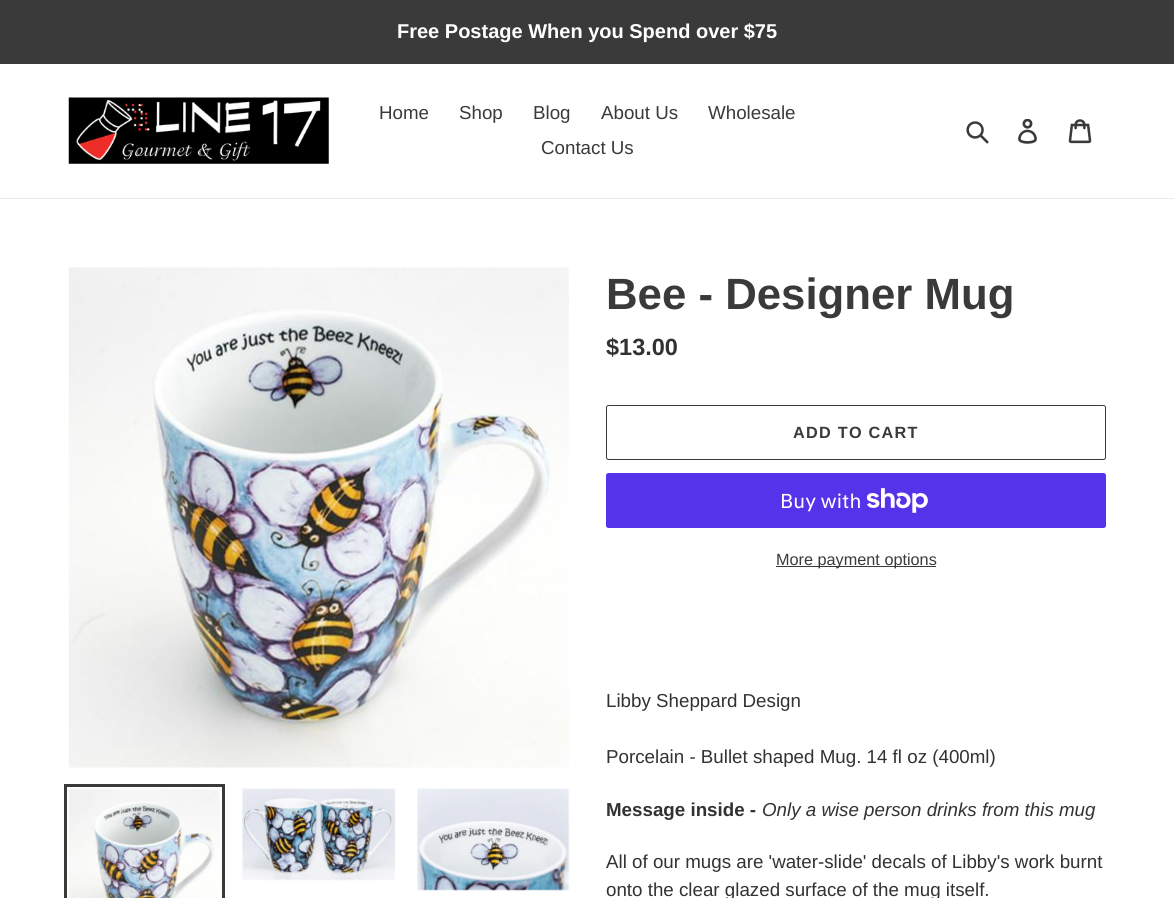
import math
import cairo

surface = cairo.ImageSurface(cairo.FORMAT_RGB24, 1174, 898)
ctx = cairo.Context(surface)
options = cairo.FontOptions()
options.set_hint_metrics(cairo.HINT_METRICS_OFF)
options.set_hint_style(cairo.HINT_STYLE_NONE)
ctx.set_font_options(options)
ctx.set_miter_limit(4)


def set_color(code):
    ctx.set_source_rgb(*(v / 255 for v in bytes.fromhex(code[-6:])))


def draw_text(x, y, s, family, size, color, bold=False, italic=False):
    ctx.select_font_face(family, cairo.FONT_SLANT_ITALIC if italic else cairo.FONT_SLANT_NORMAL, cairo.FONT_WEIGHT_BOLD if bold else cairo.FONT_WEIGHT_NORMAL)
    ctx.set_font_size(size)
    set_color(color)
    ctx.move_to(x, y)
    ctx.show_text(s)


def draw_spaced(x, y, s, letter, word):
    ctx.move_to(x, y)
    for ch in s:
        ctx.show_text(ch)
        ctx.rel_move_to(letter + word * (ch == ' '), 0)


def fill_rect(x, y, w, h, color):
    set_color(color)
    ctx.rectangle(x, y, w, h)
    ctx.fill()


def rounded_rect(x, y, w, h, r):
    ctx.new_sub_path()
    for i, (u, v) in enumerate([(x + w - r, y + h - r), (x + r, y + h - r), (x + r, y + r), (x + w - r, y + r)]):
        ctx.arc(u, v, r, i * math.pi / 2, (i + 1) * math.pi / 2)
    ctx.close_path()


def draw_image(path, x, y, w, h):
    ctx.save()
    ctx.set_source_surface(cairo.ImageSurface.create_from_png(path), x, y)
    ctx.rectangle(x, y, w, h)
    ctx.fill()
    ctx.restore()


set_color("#ffffff")
ctx.paint()
fill_rect(0, 0, 1174, 64, "#3a3a3a")
draw_text(397, 38, "Free Postage When you Spend over $75", "Liberation Sans", 20, "#ffffff", bold=True)
fill_rect(0, 198, 1174, 1, "#ebebeb")
draw_image("assets/img1.png", 68, 97, 261, 67)
draw_text(379, 119, "Home", "Liberation Sans", 18.75, "#3a3a3a")
draw_text(459, 119, "Shop", "Liberation Sans", 18.75, "#3a3a3a")
draw_text(533, 119, "Blog", "Liberation Sans", 18.75, "#3a3a3a")
draw_text(601, 119, "About Us", "Liberation Sans", 18.75, "#3a3a3a")
draw_text(708, 119, "Wholesale", "Liberation Sans", 18.75, "#3a3a3a")
draw_text(541, 154, "Contact Us", "Liberation Sans", 18.75, "#3a3a3a")
draw_image("assets/img2.png", 966, 121, 23, 23)
draw_image("assets/img3.png", 1018, 119, 19, 25)
draw_image("assets/img4.png", 1068, 119, 24, 25)
draw_image("assets/img5.png", 68, 267, 501, 501)
ctx.rectangle(65.5, 785.5, 158, 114)
ctx.set_line_width(3)
ctx.stroke()
draw_image("assets/img6.png", 68, 788, 152, 110)
draw_image("assets/img7.png", 242, 788, 154, 93)
draw_image("assets/img8.png", 417, 788, 153, 103)
draw_text(606, 309, "Bee - Designer Mug", "Liberation Sans", 43.75, "#3a3a3a", bold=True)
draw_text(606, 355, "$13.00", "Liberation Sans", 23.5, "#333232", bold=True)
rounded_rect(606.5, 405.5, 499, 54, 2)
set_color("#3a3a3a")
ctx.set_line_width(1)
ctx.stroke()
ctx.set_font_size(16.25)
draw_spaced(793, 438, "ADD TO CART", 1.25, 0)
set_color("#5433eb")
rounded_rect(606, 473, 500, 55, 2.5)
ctx.fill()
draw_text(780, 508, "Buy with", "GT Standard", 20, "#ffffff")
draw_image("assets/img9.png", 866, 488, 62, 25)
fill_rect(776, 566, 160, 1, "#3a3a3a")
draw_text(776, 565, "More payment options", "Liberation Sans", 16.25, "#3a3a3a")
draw_text(606, 707, "Libby Sheppard Design", "Liberation Sans", 18.75, "#333232")
draw_text(606, 763, "Porcelain - Bullet shaped Mug. 14 fl oz (400ml)", "Liberation Sans", 18.75, "#333232")
draw_text(606, 816, "Message inside -", "Liberation Sans", 18.75, "#333232", bold=True)
draw_text(762, 816, "Only a wise person drinks from this mug", "Liberation Sans", 18.75, "#333232", italic=True)
draw_text(606, 868, "All of our mugs are 'water-slide' decals of Libby's work burnt", "Liberation Sans", 18.75, "#333232")
draw_text(606, 896, "onto the clear glazed surface of the mug itself.", "Liberation Sans", 18.75, "#333232")
surface.write_to_png("output.png")
